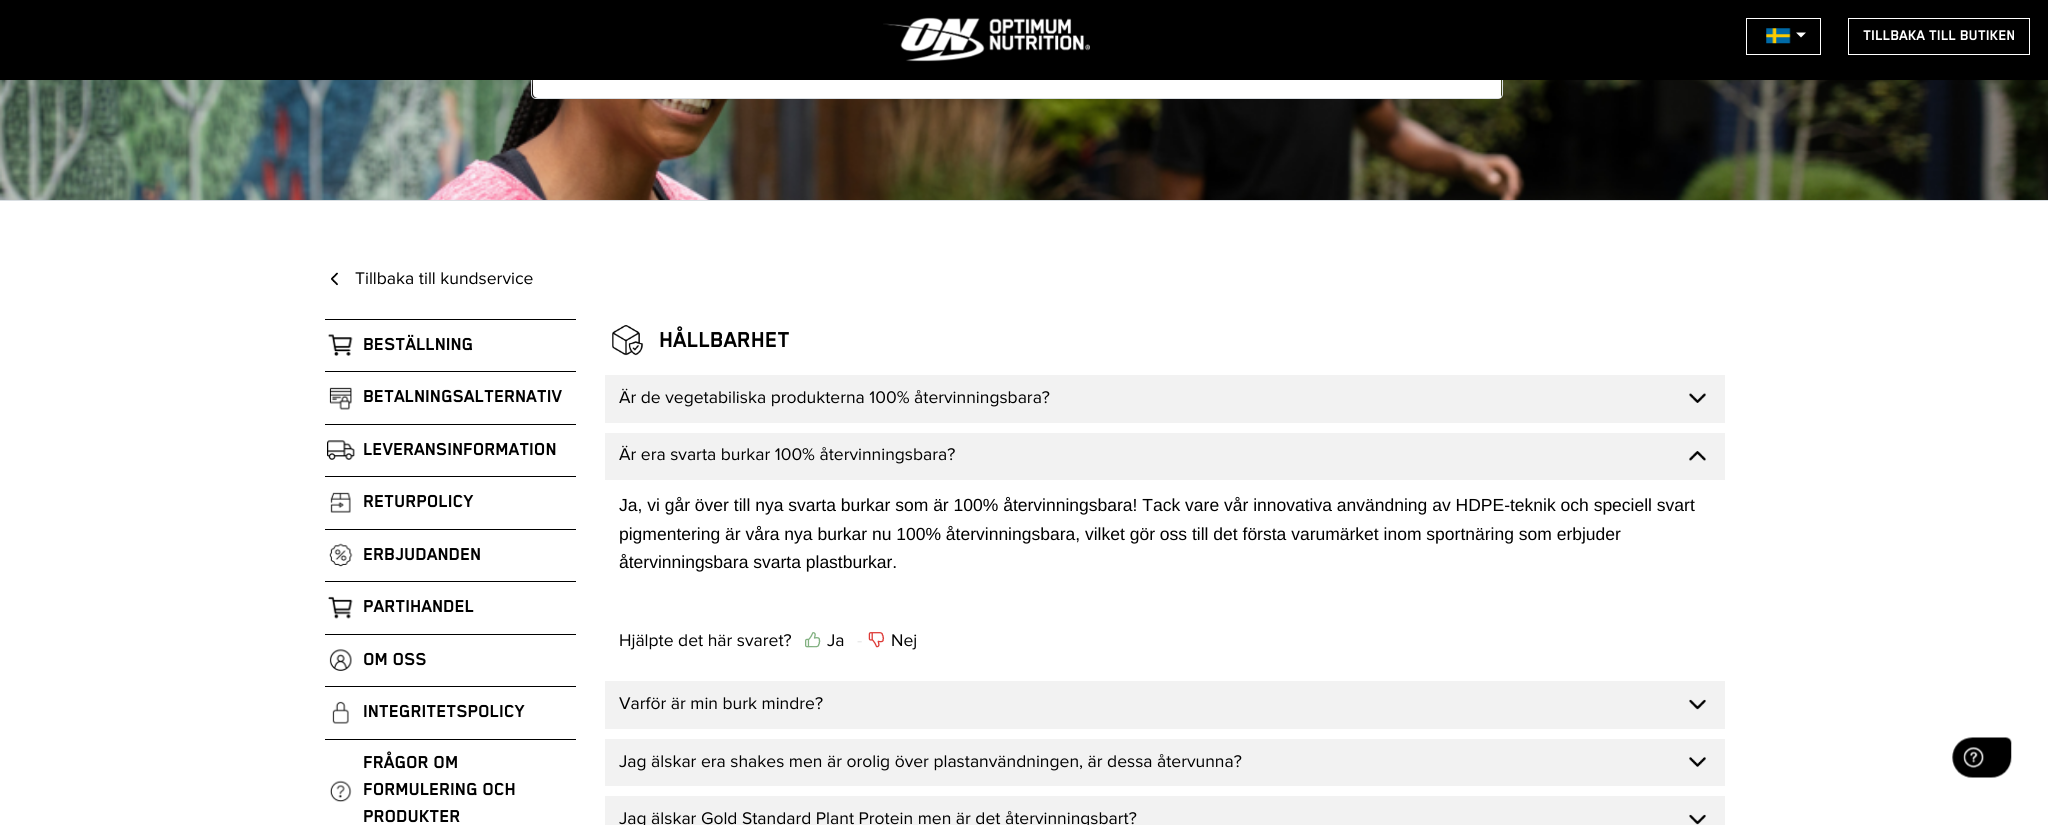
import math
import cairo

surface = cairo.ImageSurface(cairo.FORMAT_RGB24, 2048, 825)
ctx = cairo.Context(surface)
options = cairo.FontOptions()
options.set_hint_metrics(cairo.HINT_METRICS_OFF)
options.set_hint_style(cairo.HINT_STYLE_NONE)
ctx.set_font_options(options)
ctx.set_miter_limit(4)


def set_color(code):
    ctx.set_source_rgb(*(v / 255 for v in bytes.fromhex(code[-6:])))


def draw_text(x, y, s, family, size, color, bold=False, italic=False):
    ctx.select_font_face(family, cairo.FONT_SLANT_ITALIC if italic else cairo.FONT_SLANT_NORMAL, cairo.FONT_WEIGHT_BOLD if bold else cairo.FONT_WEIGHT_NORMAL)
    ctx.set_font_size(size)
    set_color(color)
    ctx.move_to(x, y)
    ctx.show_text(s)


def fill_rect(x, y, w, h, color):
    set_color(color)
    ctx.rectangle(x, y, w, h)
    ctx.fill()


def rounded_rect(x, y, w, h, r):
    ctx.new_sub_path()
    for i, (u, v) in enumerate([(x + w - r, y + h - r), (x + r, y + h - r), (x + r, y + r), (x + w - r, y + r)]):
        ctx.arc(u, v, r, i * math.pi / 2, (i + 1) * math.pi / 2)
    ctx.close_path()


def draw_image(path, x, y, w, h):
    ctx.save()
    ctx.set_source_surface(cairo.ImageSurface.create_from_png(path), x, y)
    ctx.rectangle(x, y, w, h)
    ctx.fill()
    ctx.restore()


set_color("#ffffff")
ctx.paint()
draw_image("assets/img3.png", 0, 80, 2048, 120)
rounded_rect(531.5, 46.5, 971, 52, 4.5)
set_color("#dadfe3")
ctx.set_line_width(1)
ctx.stroke()
set_color("#ffffff")
ctx.new_path()
ctx.move_to(538, 48)
ctx.line_to(1404, 48)
ctx.line_to(1404, 98)
ctx.line_to(538, 98)
ctx.curve_to(535, 98, 533, 96, 533, 93)
ctx.line_to(533, 53)
ctx.curve_to(533, 50, 535, 48, 538, 48)
ctx.close_path()
ctx.fill()
fill_rect(0, 0, 2048, 80, "#000000")
draw_image("assets/img1.png", 883, 17, 207, 45)
ctx.rectangle(1746.5, 18.5, 74, 36)
set_color("#ffffff")
ctx.stroke()
draw_image("assets/img2.png", 1766, 28, 25, 16)
ctx.new_path()
ctx.move_to(1796, 32.5)
ctx.line_to(1806, 32.5)
ctx.line_to(1801, 37.5)
ctx.close_path()
ctx.fill()
ctx.rectangle(1848.5, 18.5, 181, 36)
ctx.stroke()
draw_text(1863, 40, "TILLBAKA TILL BUTIKEN", "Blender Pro", 16.25, "#ffffff", bold=True)
fill_rect(0, 200, 2048, 1, "#dadfe3")
fill_rect(1404, 80, 97, 18, "#ffffff")
draw_image("assets/img4.png", 331, 272, 7, 14)
draw_text(355, 284, "Tillbaka till kundservice", "Proxima Nova", 17.5, "#000000")
fill_rect(325, 319, 251, 1, "#000000")
draw_image("assets/img5.png", 328, 334, 25, 22)
draw_text(363, 350, "BESTÄLLNING", "Blender Pro", 20, "#000000", bold=True)
fill_rect(325, 371, 251, 1, "#000000")
draw_image("assets/img6.png", 329, 387, 23, 23)
draw_text(363, 402, "BETALNINGSALTERNATIV", "Blender Pro", 20, "#000000", bold=True)
fill_rect(325, 424, 251, 1, "#000000")
draw_image("assets/img7.png", 327, 440, 28, 20)
draw_text(363, 455, "LEVERANSINFORMATION", "Blender Pro", 20, "#000000", bold=True)
fill_rect(325, 476, 251, 1, "#000000")
draw_image("assets/img8.png", 330, 492, 21, 21)
draw_text(363, 507, "RETURPOLICY", "Blender Pro", 20, "#000000", bold=True)
fill_rect(325, 529, 251, 1, "#000000")
draw_image("assets/img9.png", 329, 543, 24, 24)
draw_text(363, 560, "ERBJUDANDEN", "Blender Pro", 20, "#000000", bold=True)
fill_rect(325, 581, 251, 1, "#000000")
draw_image("assets/img10.png", 328, 596, 25, 23)
draw_text(363, 612, "PARTIHANDEL", "Blender Pro", 20, "#000000", bold=True)
fill_rect(325, 634, 251, 1, "#000000")
draw_image("assets/img11.png", 329, 649, 23, 22)
draw_text(363, 665, "OM OSS", "Blender Pro", 20, "#000000", bold=True)
fill_rect(325, 686, 251, 1, "#000000")
draw_image("assets/img12.png", 332, 701, 17, 23)
draw_text(363, 717, "INTEGRITETSPOLICY", "Blender Pro", 20, "#000000", bold=True)
fill_rect(325, 739, 251, 1, "#000000")
draw_image("assets/img13.png", 330, 780, 22, 22)
draw_text(363, 768, "FRÅGOR OM", "Blender Pro", 20, "#000000", bold=True)
draw_text(363, 795, "FORMULERING OCH", "Blender Pro", 20, "#000000", bold=True)
draw_text(363, 822, "PRODUKTER", "Blender Pro", 20, "#000000", bold=True)
draw_image("assets/img14.png", 612, 325, 32, 31)
draw_text(659, 347, "HÅLLBARHET", "Blender Pro", 25, "#000000", bold=True)
fill_rect(605, 375, 1120, 48, "#f2f2f2")
draw_text(619, 403, "Är de vegetabiliska produkterna 100% återvinningsbara?", "Proxima Nova", 17.5, "#000000")
draw_image("assets/img15.png", 1689, 393, 17, 10)
fill_rect(605, 433, 1120, 47, "#f2f2f2")
draw_text(619, 460, "Är era svarta burkar 100% återvinningsbara?", "Proxima Nova", 17.5, "#000000")
draw_image("assets/img16.png", 1689, 451, 17, 10)
draw_text(619, 511, "Ja, vi går över till nya svarta burkar som är 100% återvinningsbara! Tack vare vår innovativa användning av HDPE-teknik och speciell svart", "Liberation Sans", 17.5, "#000000")
draw_text(619, 540, "pigmentering är våra nya burkar nu 100% återvinningsbara, vilket gör oss till det första varumärket inom sportnäring som erbjuder", "Liberation Sans", 17.5, "#000000")
draw_text(619, 568, "återvinningsbara svarta plastburkar.", "Liberation Sans", 17.5, "#000000")
draw_text(619, 646, "Hjälpte det här svaret?", "Proxima Nova", 17.5, "#000000")
draw_image("assets/img17.png", 805, 632, 16, 16)
draw_text(827, 646, "Ja", "Proxima Nova", 17.5, "#000000")
draw_text(857, 646, "-", "Proxima Nova", 17.5, "#e5e5e5")
draw_image("assets/img18.png", 868, 632, 17, 16)
draw_text(891, 646, "Nej", "Proxima Nova", 17.5, "#000000")
fill_rect(605, 681, 1120, 48, "#f2f2f2")
draw_text(619, 709, "Varför är min burk mindre?", "Proxima Nova", 17.5, "#000000")
draw_image("assets/img19.png", 1689, 699, 17, 11)
fill_rect(605, 739, 1120, 47, "#f2f2f2")
draw_text(619, 767, "Jag älskar era shakes men är orolig över plastanvändningen, är dessa återvunna?", "Proxima Nova", 17.5, "#000000")
draw_image("assets/img20.png", 1689, 757, 17, 10)
fill_rect(605, 796, 1120, 29, "#f2f2f2")
draw_text(619, 824, "Jag älskar Gold Standard Plant Protein men är det återvinningsbart?", "Proxima Nova", 17.5, "#000000")
draw_image("assets/img19.png", 1689, 814, 17, 11)
draw_image("assets/img21.png", 1952, 737, 60, 41)
surface.write_to_png("output.png")
